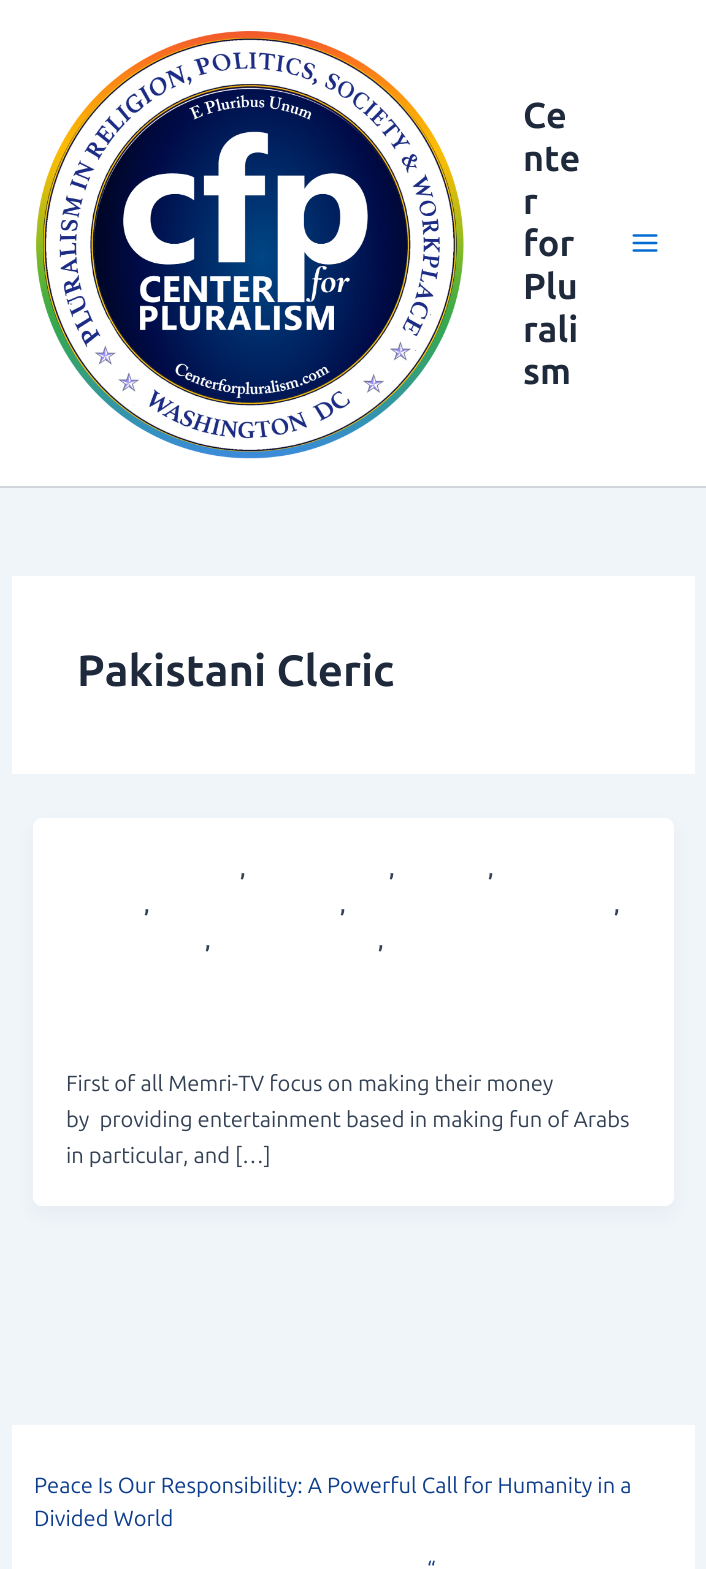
import math
import cairo

surface = cairo.ImageSurface(cairo.FORMAT_RGB24, 706, 1569)
ctx = cairo.Context(surface)
options = cairo.FontOptions()
options.set_hint_metrics(cairo.HINT_METRICS_OFF)
options.set_hint_style(cairo.HINT_STYLE_NONE)
ctx.set_font_options(options)
ctx.set_miter_limit(4)


def set_color(code):
    ctx.set_source_rgb(*(v / 255 for v in bytes.fromhex(code[-6:])))


def draw_text(x, y, s, family, size, color, bold=False, italic=False):
    ctx.select_font_face(family, cairo.FONT_SLANT_ITALIC if italic else cairo.FONT_SLANT_NORMAL, cairo.FONT_WEIGHT_BOLD if bold else cairo.FONT_WEIGHT_NORMAL)
    ctx.set_font_size(size)
    set_color(color)
    ctx.move_to(x, y)
    ctx.show_text(s)


def fill_rect(x, y, w, h, color):
    set_color(color)
    ctx.rectangle(x, y, w, h)
    ctx.fill()


def rounded_rect(x, y, w, h, r):
    ctx.new_sub_path()
    for i, (u, v) in enumerate([(x + w - r, y + h - r), (x + r, y + h - r), (x + r, y + r), (x + w - r, y + r)]):
        ctx.arc(u, v, r, i * math.pi / 2, (i + 1) * math.pi / 2)
    ctx.close_path()


def draw_shadow(x, y, w, h, r, blur, alpha):
    ctx.push_group_with_content(cairo.CONTENT_ALPHA)
    ctx.set_operator(cairo.OPERATOR_SOURCE)
    for i in range(15, -16, -2):
        e = blur * i / 6
        if min(w, h) + 2 * e > 0:
            ctx.set_source_rgba(0, 0, 0, alpha * math.erfc((i - 1) / 8.5) / 2)
            rounded_rect(x - e, y - e, w + 2 * e, h + 2 * e, max(0, min(r + e + blur * .6, min(w, h) / 2 + e)))
            ctx.fill()
    ctx.mask(ctx.pop_group())


def draw_image(path, x, y, w, h):
    ctx.save()
    ctx.set_source_surface(cairo.ImageSurface.create_from_png(path), x, y)
    ctx.rectangle(x, y, w, h)
    ctx.fill()
    ctx.restore()


set_color("#f0f5fa")
ctx.paint()
fill_rect(0, 0, 706, 486, "#ffffff")
fill_rect(0, 486, 706, 2, "#d1d5db")
draw_image("assets/img1.png", 36, 31, 428, 428)
draw_text(523, 128, "Ce", "Ubuntu", 36, "#1e293b", bold=True)
draw_text(523, 171, "nte", "Ubuntu", 36, "#1e293b", bold=True)
draw_text(523, 214, "r", "Ubuntu", 36, "#1e293b", bold=True)
draw_text(523, 256, "for", "Ubuntu", 36, "#1e293b", bold=True)
draw_text(523, 299, "Plu", "Ubuntu", 36, "#1e293b", bold=True)
draw_text(523, 342, "rali", "Ubuntu", 36, "#1e293b", bold=True)
draw_text(523, 384, "sm", "Ubuntu", 36, "#1e293b", bold=True)
draw_image("assets/img2.png", 632, 234, 26, 18)
fill_rect(12, 576, 683, 198, "#ffffff")
draw_text(77, 686, "Pakistani Cleric", "Ubuntu", 43.75, "#1e293b", bold=True)
set_color("#101828")
draw_shadow(36, 830, 635, 382, 6, 11, 0.05)
set_color("#ffffff")
rounded_rect(33, 818, 641, 388, 9)
ctx.fill()
draw_text(240, 876, ",", "Ubuntu SemiBold", 21.9, "#334155")
draw_text(389, 876, ",", "Ubuntu SemiBold", 21.9, "#334155")
draw_text(488, 876, ",", "Ubuntu SemiBold", 21.9, "#334155")
draw_text(144, 912, ",", "Ubuntu SemiBold", 21.9, "#334155")
draw_text(340, 912, ",", "Ubuntu SemiBold", 21.9, "#334155")
draw_text(614, 912, ",", "Ubuntu SemiBold", 21.9, "#334155")
draw_text(205, 948, ",", "Ubuntu SemiBold", 21.9, "#334155")
draw_text(378, 948, ",", "Ubuntu SemiBold", 21.9, "#334155")
draw_text(66, 1091, "First of all Memri-TV focus on making their money", "Ubuntu", 21.9, "#334155")
draw_text(66, 1127, "by  providing entertainment based in making fun of Arabs", "Ubuntu", 21.9, "#334155")
draw_text(66, 1163, "in particular, and […]", "Ubuntu", 21.9, "#334155")
fill_rect(12, 1425, 683, 144, "#ffffff")
draw_text(34, 1493, "Peace Is Our Responsibility: A Powerful Call for Humanity in a", "Ubuntu", 21.9, "#0d3d8c")
draw_text(34, 1526, "Divided World", "Ubuntu", 21.9, "#0d3d8c")
draw_text(427, 1577, "“", "Ubuntu", 21.9, "#0d3d8c")
surface.write_to_png("output.png")
